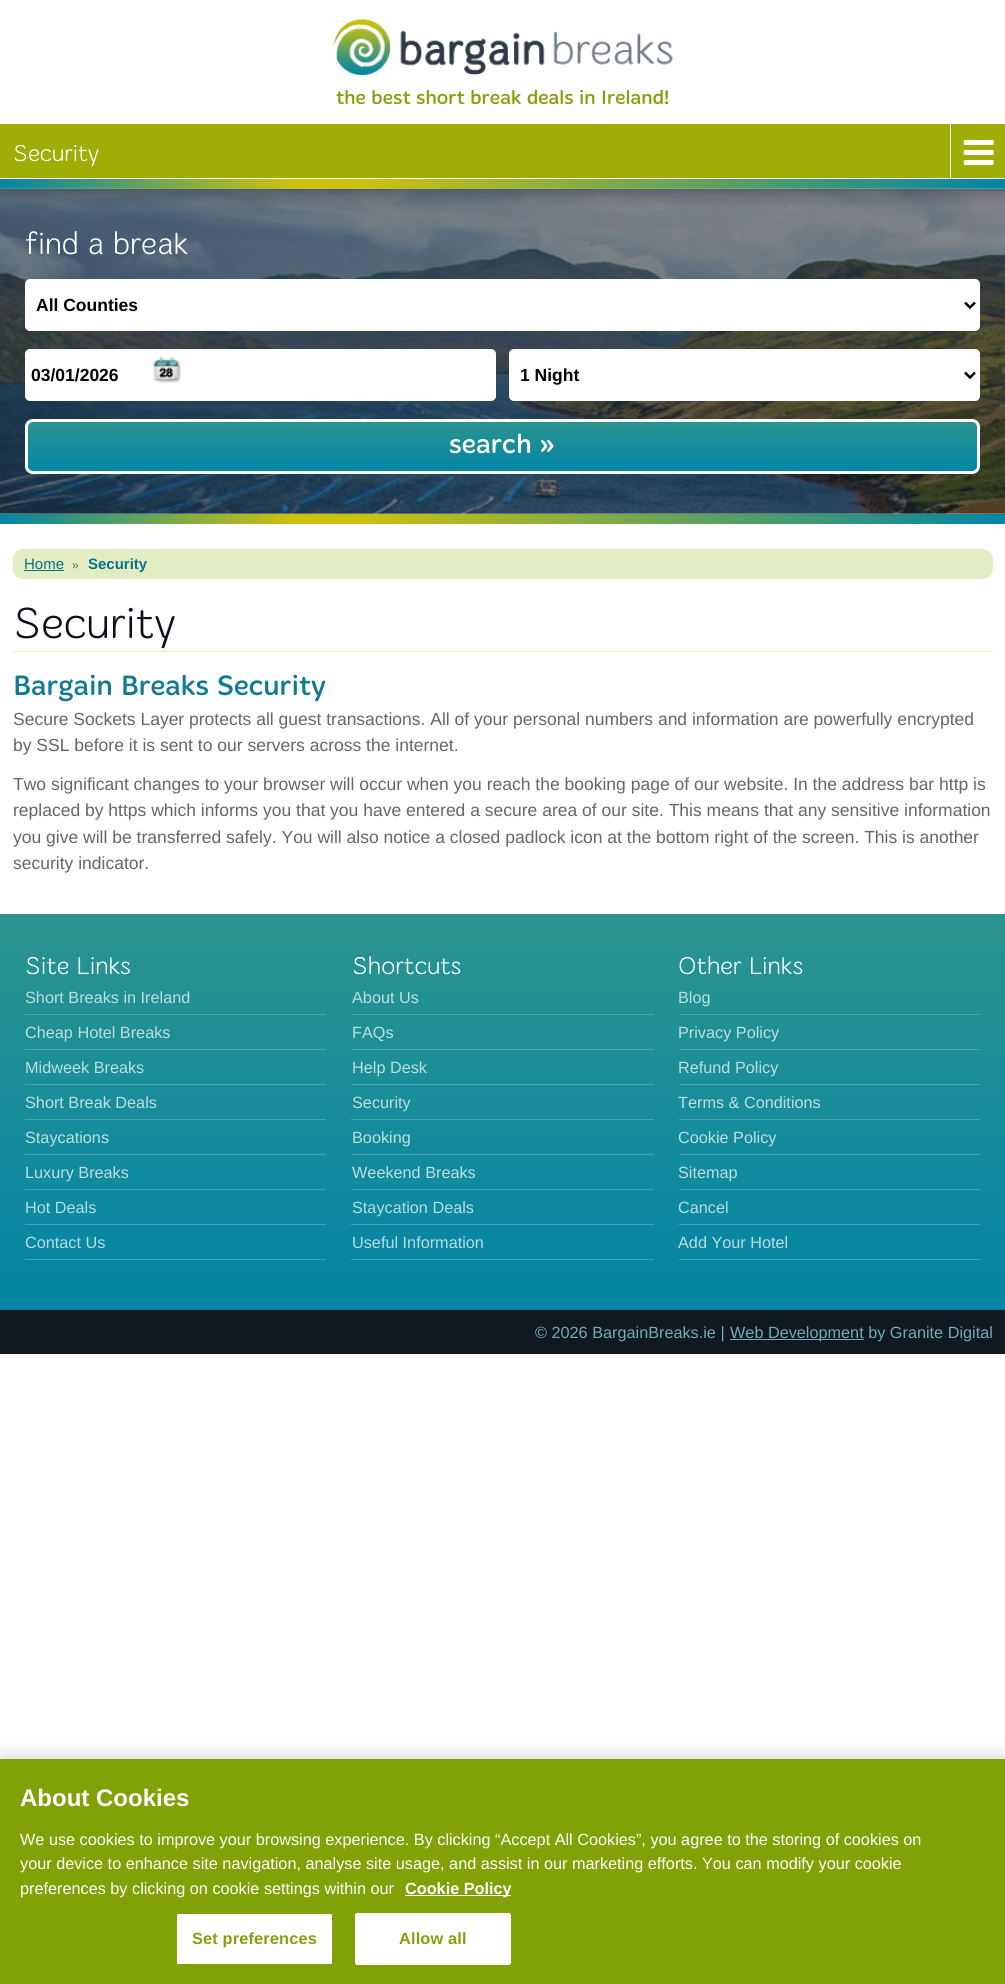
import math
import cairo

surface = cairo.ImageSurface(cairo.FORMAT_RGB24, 1005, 1984)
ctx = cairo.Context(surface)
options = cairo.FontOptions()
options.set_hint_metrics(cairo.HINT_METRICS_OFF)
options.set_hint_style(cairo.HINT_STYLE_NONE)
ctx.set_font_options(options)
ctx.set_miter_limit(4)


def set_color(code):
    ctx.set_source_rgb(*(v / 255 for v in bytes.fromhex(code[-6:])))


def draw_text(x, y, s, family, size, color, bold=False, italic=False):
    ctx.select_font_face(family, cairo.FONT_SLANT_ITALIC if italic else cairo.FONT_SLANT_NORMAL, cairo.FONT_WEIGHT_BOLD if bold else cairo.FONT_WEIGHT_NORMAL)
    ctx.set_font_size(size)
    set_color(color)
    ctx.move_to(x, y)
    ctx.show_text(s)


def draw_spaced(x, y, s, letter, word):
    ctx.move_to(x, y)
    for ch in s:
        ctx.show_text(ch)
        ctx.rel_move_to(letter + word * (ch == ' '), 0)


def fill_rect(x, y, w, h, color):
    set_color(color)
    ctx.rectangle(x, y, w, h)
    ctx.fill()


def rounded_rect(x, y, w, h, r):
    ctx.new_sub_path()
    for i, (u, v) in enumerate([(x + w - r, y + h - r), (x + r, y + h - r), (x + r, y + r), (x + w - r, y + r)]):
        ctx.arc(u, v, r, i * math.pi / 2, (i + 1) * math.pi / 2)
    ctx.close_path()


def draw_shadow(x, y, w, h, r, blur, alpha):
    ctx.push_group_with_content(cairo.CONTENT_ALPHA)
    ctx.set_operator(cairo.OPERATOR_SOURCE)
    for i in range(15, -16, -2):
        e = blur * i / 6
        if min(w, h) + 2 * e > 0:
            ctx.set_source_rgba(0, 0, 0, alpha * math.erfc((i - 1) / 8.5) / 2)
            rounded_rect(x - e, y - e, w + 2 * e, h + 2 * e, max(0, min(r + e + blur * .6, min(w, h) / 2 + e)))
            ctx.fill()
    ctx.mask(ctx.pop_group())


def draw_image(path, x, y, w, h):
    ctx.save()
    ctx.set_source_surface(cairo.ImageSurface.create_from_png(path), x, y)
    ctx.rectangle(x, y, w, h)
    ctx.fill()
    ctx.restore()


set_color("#ffffff")
ctx.paint()
draw_image("assets/img1.png", 333, 18, 340, 57)
draw_text(336, 104, "the best short break deals in Ireland!", "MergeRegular", 20, "#80a209")
fill_rect(0, 124, 1005, 54, "#9fad07")
draw_text(13, 161, "Security", "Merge", 22.5, "#ffffff")
fill_rect(950, 124, 1, 55, "#ffffff")
draw_image("assets/img2.png", 963, 140, 31, 25)
gradient = cairo.LinearGradient(0, 184, 1005, 184)
gradient.add_color_stop_rgba(0, 0.012, 0.522, 0.647, 1)
gradient.add_color_stop_rgba(0.29, 0.8, 0.757, 0.055, 1)
gradient.add_color_stop_rgba(0.36, 0.8, 0.757, 0.055, 1)
gradient.add_color_stop_rgba(1, 0.012, 0.522, 0.647, 1)
ctx.set_source(gradient)
ctx.rectangle(0, 179, 1005, 10)
ctx.fill()
draw_image("assets/img3.png", 0, 188, 1005, 326)
draw_image("assets/img4.png", 0, 188, 1005, 19)
draw_text(25, 254, "find a break", "Merge", 30, "#ffffff")
rounded_rect(25, 279, 955, 52, 5)
ctx.fill()
ctx.new_path()
ctx.move_to(965, 302.5)
ctx.line_to(970, 307.5)
ctx.line_to(975, 302.5)
set_color("#000000")
ctx.set_line_width(2.5)
ctx.stroke()
draw_text(36, 311, "All Counties", "Liberation Sans", 17.5, "#000000", bold=True)
set_color("#ffffff")
rounded_rect(25, 349, 471, 52, 5)
ctx.fill()
draw_image("assets/img5.png", 152, 356, 29, 28)
draw_text(31, 381, "03/01/2026", "Liberation Sans", 17.5, "#000000", bold=True)
set_color("#ffffff")
rounded_rect(509, 349, 471, 52, 5)
ctx.fill()
ctx.new_path()
ctx.move_to(965, 372.5)
ctx.line_to(970, 377.5)
ctx.line_to(975, 372.5)
set_color("#000000")
ctx.stroke()
draw_text(520, 381, "1 Night", "Liberation Sans", 17.5, "#000000", bold=True)
ctx.save()
rounded_rect(25, 419, 955, 55, 8)
ctx.clip()
gradient = cairo.LinearGradient(503, 421, 503, 471)
gradient.add_color_stop_rgba(0, 0.169, 0.58, 0.561, 1)
gradient.add_color_stop_rgba(1, 0.012, 0.522, 0.647, 1)
ctx.set_source(gradient)
ctx.rectangle(25, 421, 955, 50)
ctx.fill()
ctx.restore()
rounded_rect(26.5, 420.5, 952, 52, 6.5)
set_color("#ffffff")
ctx.set_line_width(3)
ctx.stroke()
draw_text(449, 453, "search »", "MergeRegular", 27.5, "#ffffff")
gradient = cairo.LinearGradient(0, 519, 1005, 519)
gradient.add_color_stop_rgba(0, 0.012, 0.522, 0.647, 1)
gradient.add_color_stop_rgba(0.29, 0.8, 0.757, 0.055, 1)
gradient.add_color_stop_rgba(0.36, 0.8, 0.757, 0.055, 1)
gradient.add_color_stop_rgba(1, 0.012, 0.522, 0.647, 1)
ctx.set_source(gradient)
ctx.rectangle(0, 514, 1005, 10)
ctx.fill()
set_color("#e2edc4")
rounded_rect(13, 549, 980, 30, 10)
ctx.fill()
draw_text(24, 569, "Home", "Liberation Sans", 15, "#097288")
fill_rect(24, 570, 40, 1, "#097288")
draw_text(72, 569, "»", "Liberation Sans", 12, "#666666")
draw_text(88, 569, "Security", "Liberation Sans", 15, "#097288", bold=True)
fill_rect(13, 651, 980, 1, "#e2edc4")
draw_text(13, 638, "Security", "Merge", 42.5, "#0a1219")
draw_text(13, 695, "Bargain Breaks Security", "MergeRegular", 28.75, "#107a92")
draw_text(13, 725, "Secure Sockets Layer protects all guest transactions. All of your personal numbers and information are powerfully encrypted", "Liberation Sans", 17.5, "#666666")
draw_text(13, 751, "by SSL before it is sent to our servers across the internet.", "Liberation Sans", 17.5, "#666666")
draw_text(13, 790, "Two significant changes to your browser will occur when you reach the booking page of our website. In the address bar http is", "Liberation Sans", 17.5, "#666666")
draw_text(13, 816, "replaced by https which informs you that you have entered a secure area of our site. This means that any sensitive information", "Liberation Sans", 17.5, "#666666")
draw_text(13, 843, "you give will be transferred safely. You will also notice a closed padlock icon at the bottom right of the screen. This is another", "Liberation Sans", 17.5, "#666666")
draw_text(13, 869, "security indicator.", "Liberation Sans", 17.5, "#666666")
gradient = cairo.LinearGradient(503, 914, 503, 1310)
gradient.add_color_stop_rgba(0, 0.169, 0.58, 0.561, 1)
gradient.add_color_stop_rgba(1, 0.012, 0.522, 0.647, 1)
ctx.set_source(gradient)
ctx.rectangle(0, 914, 1005, 396)
ctx.fill()
draw_text(25, 974, "Site Links", "Merge", 23.75, "#ffffff")
fill_rect(25, 1014, 301, 1, "#4aa5ae")
draw_text(25, 1003, "Short Breaks in Ireland", "Liberation Sans", 16.25, "#bddedf")
fill_rect(25, 1049, 301, 1, "#49a5ae")
draw_text(25, 1038, "Cheap Hotel Breaks", "Liberation Sans", 16.25, "#bddedf")
fill_rect(25, 1084, 301, 1, "#48a4ae")
draw_text(25, 1073, "Midweek Breaks", "Liberation Sans", 16.25, "#bddedf")
fill_rect(25, 1119, 301, 1, "#47a4af")
draw_text(25, 1108, "Short Break Deals", "Liberation Sans", 16.25, "#bddedf")
fill_rect(25, 1154, 301, 1, "#46a4b0")
draw_text(25, 1143, "Staycations", "Liberation Sans", 16.25, "#bddedf")
fill_rect(25, 1189, 301, 1, "#45a3b0")
draw_text(25, 1178, "Luxury Breaks", "Liberation Sans", 16.25, "#bddedf")
fill_rect(25, 1224, 301, 1, "#44a3b1")
draw_text(25, 1213, "Hot Deals", "Liberation Sans", 16.25, "#b6dce2")
fill_rect(25, 1259, 301, 1, "#43a2b1")
draw_text(25, 1248, "Contact Us", "Liberation Sans", 16.25, "#b6dce2")
draw_text(352, 974, "Shortcuts", "Merge", 23.75, "#ffffff")
fill_rect(351, 1014, 303, 1, "#4aa5ae")
draw_text(352, 1003, "About Us", "Liberation Sans", 16.25, "#bddedf")
fill_rect(351, 1049, 303, 1, "#49a5ae")
draw_text(352, 1038, "FAQs", "Liberation Sans", 16.25, "#bddedf")
fill_rect(351, 1084, 303, 1, "#48a4ae")
draw_text(352, 1073, "Help Desk", "Liberation Sans", 16.25, "#bddedf")
fill_rect(351, 1119, 303, 1, "#47a4af")
draw_text(352, 1108, "Security", "Liberation Sans", 16.25, "#bddedf")
fill_rect(351, 1154, 303, 1, "#46a4b0")
draw_text(352, 1143, "Booking", "Liberation Sans", 16.25, "#bddedf")
fill_rect(351, 1189, 303, 1, "#45a3b0")
draw_text(352, 1178, "Weekend Breaks", "Liberation Sans", 16.25, "#bddedf")
fill_rect(351, 1224, 303, 1, "#44a3b1")
draw_text(352, 1213, "Staycation Deals", "Liberation Sans", 16.25, "#b6dce2")
fill_rect(351, 1259, 303, 1, "#43a2b1")
draw_text(352, 1248, "Useful Information", "Liberation Sans", 16.25, "#b6dce2")
draw_text(678, 974, "Other Links", "Merge", 23.75, "#ffffff")
fill_rect(679, 1014, 301, 1, "#4aa5ae")
draw_text(678, 1003, "Blog", "Liberation Sans", 16.25, "#bddedf")
fill_rect(679, 1049, 301, 1, "#49a5ae")
draw_text(678, 1038, "Privacy Policy", "Liberation Sans", 16.25, "#bddedf")
fill_rect(679, 1084, 301, 1, "#48a4ae")
draw_text(678, 1073, "Refund Policy", "Liberation Sans", 16.25, "#bddedf")
fill_rect(679, 1119, 301, 1, "#47a4af")
draw_text(678, 1108, "Terms & Conditions", "Liberation Sans", 16.25, "#bddedf")
fill_rect(679, 1154, 301, 1, "#46a4b0")
draw_text(678, 1143, "Cookie Policy", "Liberation Sans", 16.25, "#bddedf")
fill_rect(679, 1189, 301, 1, "#45a3b0")
draw_text(678, 1178, "Sitemap", "Liberation Sans", 16.25, "#bddedf")
fill_rect(679, 1224, 301, 1, "#44a3b1")
draw_text(678, 1213, "Cancel", "Liberation Sans", 16.25, "#b6dce2")
fill_rect(679, 1259, 301, 1, "#43a2b1")
draw_text(678, 1248, "Add Your Hotel", "Liberation Sans", 16.25, "#b6dce2")
fill_rect(0, 1310, 1005, 44, "#101820")
draw_text(535, 1338, "© 2026 BargainBreaks.ie |", "Liberation Sans", 16.25, "#6eacb8")
fill_rect(730, 1339, 134, 1, "#6eacb8")
draw_text(730, 1338, "Web Development by Granite Digital", "Liberation Sans", 16.25, "#6eacb8")
set_color("#000000")
draw_shadow(0, 1759, 1005, 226, 0, 11, 0.2)
fill_rect(0, 1759, 1005, 225, "#80a207")
draw_text(20, 1806, "About Cookies", "Liberation Sans", 24, "#ffffff", bold=True)
draw_text(20, 1845, "We use cookies to improve your browsing experience. By clicking “Accept All Cookies”, you agree to the storing of cookies on", "Liberation Sans", 16.25, "#ffffff")
draw_text(20, 1869, "your device to enhance site navigation, analyse site usage, and assist in our marketing efforts. You can modify your cookie", "Liberation Sans", 16.25, "#ffffff")
draw_text(20, 1894, "preferences by clicking on cookie settings within our", "Liberation Sans", 16.25, "#ffffff")
fill_rect(405, 1895, 106, 1, "#ffffff")
draw_text(405, 1894, "Cookie Policy", "Liberation Sans", 16.25, "#ffffff", bold=True)
rounded_rect(176.5, 1913.5, 156, 51, 2)
ctx.fill_preserve()
set_color("#80a207")
ctx.set_line_width(1)
ctx.stroke()
set_color("#80a209")
draw_spaced(192, 1944, "Set preferences", 0.2, 0)
set_color("#ffffff")
rounded_rect(355.5, 1913.5, 155, 51, 2)
ctx.fill_preserve()
ctx.stroke()
set_color("#80a209")
draw_spaced(399, 1944, "Allow all", 0.2, 0)
surface.write_to_png("output.png")
